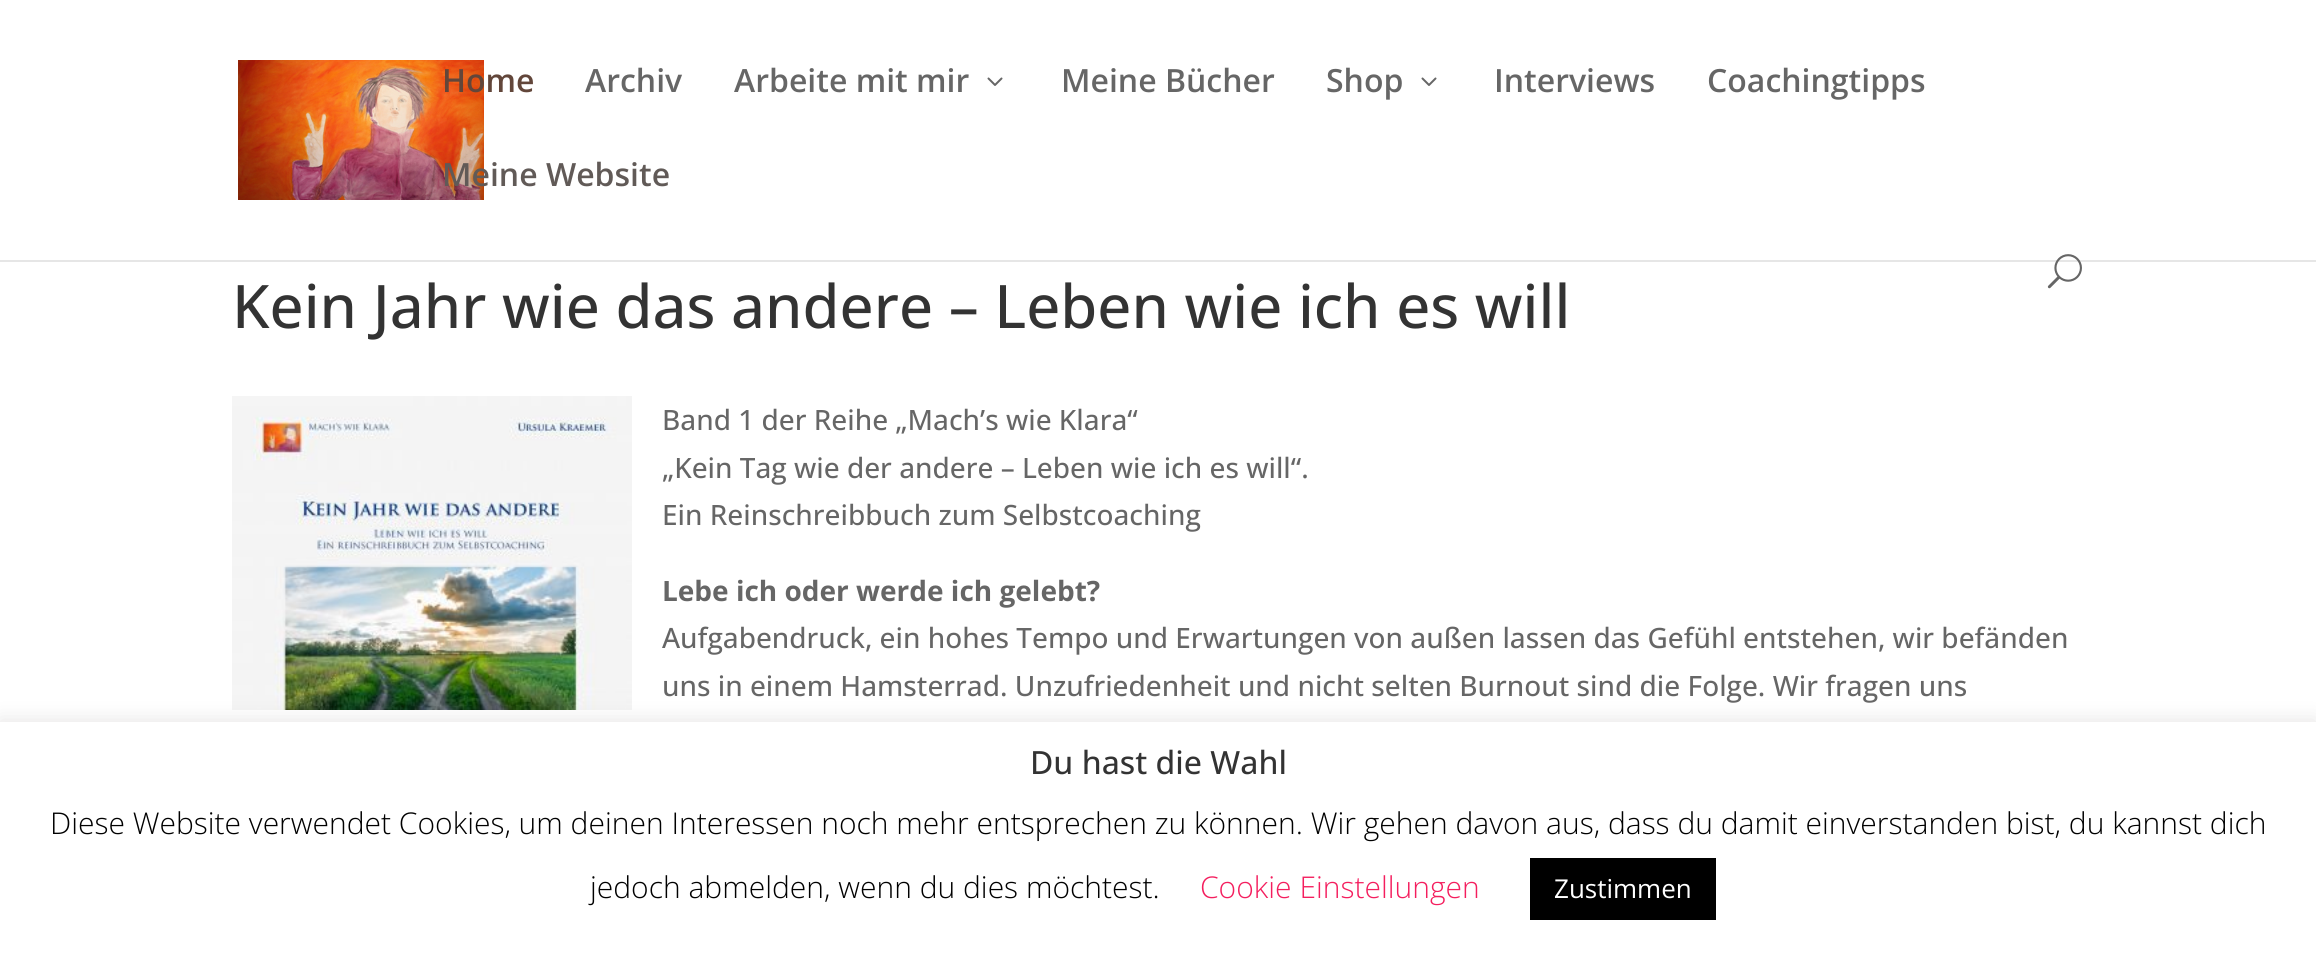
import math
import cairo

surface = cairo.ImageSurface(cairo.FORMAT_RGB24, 2316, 954)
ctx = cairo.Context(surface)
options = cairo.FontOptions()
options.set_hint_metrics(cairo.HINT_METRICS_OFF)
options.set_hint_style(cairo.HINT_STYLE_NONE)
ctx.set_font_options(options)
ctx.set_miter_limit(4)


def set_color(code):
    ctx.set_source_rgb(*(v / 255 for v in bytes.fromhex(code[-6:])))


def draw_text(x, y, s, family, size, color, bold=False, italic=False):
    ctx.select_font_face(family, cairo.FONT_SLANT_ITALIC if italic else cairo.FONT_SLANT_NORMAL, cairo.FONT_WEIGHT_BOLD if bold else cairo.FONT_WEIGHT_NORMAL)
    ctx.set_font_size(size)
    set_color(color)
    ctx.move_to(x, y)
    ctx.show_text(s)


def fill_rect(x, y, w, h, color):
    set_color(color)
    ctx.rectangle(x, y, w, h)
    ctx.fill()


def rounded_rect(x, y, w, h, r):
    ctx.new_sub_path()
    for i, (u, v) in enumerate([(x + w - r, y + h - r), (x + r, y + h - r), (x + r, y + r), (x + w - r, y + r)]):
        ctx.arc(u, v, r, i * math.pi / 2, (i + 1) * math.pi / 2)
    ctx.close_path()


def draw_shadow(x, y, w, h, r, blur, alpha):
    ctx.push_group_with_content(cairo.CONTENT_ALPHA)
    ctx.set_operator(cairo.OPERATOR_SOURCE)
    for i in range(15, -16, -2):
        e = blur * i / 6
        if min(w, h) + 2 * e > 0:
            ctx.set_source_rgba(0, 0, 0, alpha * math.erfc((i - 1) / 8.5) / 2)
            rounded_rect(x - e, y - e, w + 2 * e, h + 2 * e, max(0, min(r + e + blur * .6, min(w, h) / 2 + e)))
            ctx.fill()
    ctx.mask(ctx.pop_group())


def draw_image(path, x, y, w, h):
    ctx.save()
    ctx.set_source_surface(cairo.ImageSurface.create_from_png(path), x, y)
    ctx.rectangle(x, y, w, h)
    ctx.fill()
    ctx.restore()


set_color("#ffffff")
ctx.paint()
fill_rect(0, 260, 2316, 2, "#e6e6e6")
draw_image("assets/img1.png", 238, 60, 246, 140)
draw_text(442, 92, "Home", "Open Sans SemiBold", 32, "#62463a")
draw_text(585, 92, "Archiv", "Open Sans SemiBold", 32, "#666666")
draw_text(734, 92, "Arbeite mit mir", "Open Sans SemiBold", 32, "#666666")
draw_image("assets/img2.png", 987, 77, 16, 9)
draw_text(1061, 92, "Meine Bücher", "Open Sans SemiBold", 32, "#666666")
draw_text(1326, 92, "Shop", "Open Sans SemiBold", 32, "#666666")
draw_image("assets/img2.png", 1421, 77, 16, 9)
draw_text(1494, 92, "Interviews", "Open Sans SemiBold", 32, "#666666")
draw_text(1707, 92, "Coachingtipps", "Open Sans SemiBold", 32, "#666666")
draw_text(442, 186, "Meine Website", "Open Sans SemiBold", 32, "#615a57")
draw_image("assets/img3.png", 2047, 254, 35, 35)
draw_text(232, 328, "Kein Jahr wie das andere – Leben wie ich es will", "Open Sans Medium", 60, "#333333")
draw_image("assets/img4.png", 232, 396, 400, 314)
draw_text(662, 430, "Band 1 der Reihe „Mach’s wie Klara“", "Open Sans Medium", 28, "#666666")
draw_text(662, 478, "„Kein Tag wie der andere – Leben wie ich es will“.", "Open Sans Medium", 28, "#666666")
draw_text(662, 525, "Ein Reinschreibbuch zum Selbstcoaching", "Open Sans Medium", 28, "#666666")
draw_text(662, 601, "Lebe ich oder werde ich gelebt?", "Open Sans", 28, "#666666", bold=True)
draw_text(662, 648, "Aufgabendruck, ein hohes Tempo und Erwartungen von außen lassen das Gefühl entstehen, wir befänden", "Open Sans Medium", 28, "#666666")
draw_text(662, 696, "uns in einem Hamsterrad. Unzufriedenheit und nicht selten Burnout sind die Folge. Wir fragen uns", "Open Sans Medium", 28, "#666666")
set_color("#acabab")
draw_shadow(0, 720, 2316, 232, 0, 10, 0.3)
fill_rect(0, 722, 2316, 232, "#ffffff")
draw_text(1030, 774, "Du hast die Wahl", "Open Sans Medium", 32, "#333333")
draw_text(50, 834, "Diese Website verwendet Cookies, um deinen Interessen noch mehr entsprechen zu können. Wir gehen davon aus, dass du damit einverstanden bist, du kannst dich", "Open Sans Light", 30, "#000000")
draw_text(590, 898, "jedoch abmelden, wenn du dies möchtest.", "Open Sans Light", 30, "#000000")
draw_text(1200, 898, "Cookie Einstellungen", "Open Sans Light", 30, "#f41e5e")
fill_rect(1530, 858, 186, 62, "#000000")
draw_text(1554, 898, "Zustimmen", "Open Sans", 26, "#ffffff")
surface.write_to_png("output.png")
